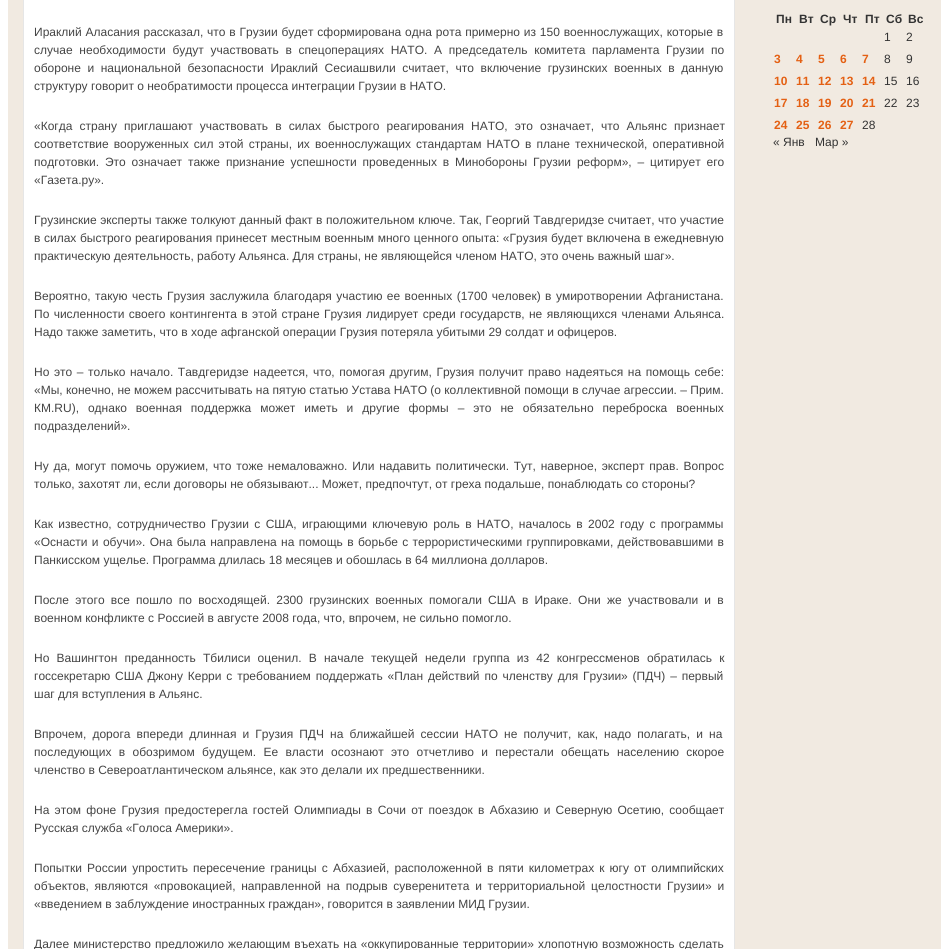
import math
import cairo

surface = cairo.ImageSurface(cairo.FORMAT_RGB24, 941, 949)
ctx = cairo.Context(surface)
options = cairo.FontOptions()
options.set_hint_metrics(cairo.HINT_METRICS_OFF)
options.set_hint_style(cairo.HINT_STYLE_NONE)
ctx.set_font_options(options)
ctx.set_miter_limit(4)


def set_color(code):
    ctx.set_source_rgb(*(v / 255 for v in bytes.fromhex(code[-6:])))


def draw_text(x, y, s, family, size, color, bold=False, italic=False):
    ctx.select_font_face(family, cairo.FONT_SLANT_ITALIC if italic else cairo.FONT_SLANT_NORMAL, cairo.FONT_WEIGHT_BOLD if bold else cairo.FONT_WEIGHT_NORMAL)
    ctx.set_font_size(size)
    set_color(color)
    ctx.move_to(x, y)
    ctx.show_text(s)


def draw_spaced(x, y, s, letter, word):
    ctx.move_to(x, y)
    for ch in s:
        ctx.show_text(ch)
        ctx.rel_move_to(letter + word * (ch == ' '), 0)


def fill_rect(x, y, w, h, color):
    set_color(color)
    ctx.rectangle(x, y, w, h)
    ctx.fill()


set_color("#ffffff")
ctx.paint()
fill_rect(8, 0, 933, 949, "#f1eae1")
set_color("#ffffff")
ctx.rectangle(23.5, -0.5, 711, 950)
ctx.fill_preserve()
set_color("#e6e6e6")
ctx.set_line_width(1)
ctx.stroke()
ctx.select_font_face("Liberation Sans")
ctx.set_font_size(12)
set_color("#444444")
draw_spaced(34, 36, "Ираклий Аласания рассказал, что в Грузии будет сформирована одна рота примерно из 150 военнослужащих, которые в", 0, 0.5)
draw_spaced(34, 54, "случае необходимости будут участвовать в спецоперациях НАТО. А председатель комитета парламента Грузии по", 0, 3.4)
draw_spaced(34, 72, "обороне и национальной безопасности Ираклий Сесиашвили считает, что включение грузинских военных в данную", 0, 3.25)
draw_text(34, 90, "структуру говорит о необратимости процесса интеграции Грузии в НАТО.", "Liberation Sans", 12, "#444444")
draw_spaced(34, 130, "«Когда страну приглашают участвовать в силах быстрого реагирования НАТО, это означает, что Альянс признает", 0, 3.75)
draw_spaced(34, 148, "соответствие вооруженных сил этой страны, их военнослужащих стандартам НАТО в плане технической, оперативной", 0, 1.75)
draw_spaced(34, 166, "подготовки. Это означает также признание успешности проведенных в Минобороны Грузии реформ», – цитирует его", 0, 2.5)
draw_text(34, 184, "«Газета.ру».", "Liberation Sans", 12, "#444444")
draw_spaced(34, 224, "Грузинские эксперты также толкуют данный факт в положительном ключе. Так, Георгий Тавдгеридзе считает, что участие", 0, 0.25)
draw_spaced(34, 242, "в силах быстрого реагирования принесет местным военным много ценного опыта: «Грузия будет включена в ежедневную", 0, 0.25)
draw_text(34, 260, "практическую деятельность, работу Альянса. Для страны, не являющейся членом НАТО, это очень важный шаг».", "Liberation Sans", 12, "#444444")
draw_spaced(34, 300, "Вероятно, такую честь Грузия заслужила благодаря участию ее военных (1700 человек) в умиротворении Афганистана.", 0, 1.1)
draw_spaced(34, 318, "По численности своего контингента в этой стране Грузия лидирует среди государств, не являющихся членами Альянса.", 0, 1)
draw_text(34, 336, "Надо также заметить, что в ходе афганской операции Грузия потеряла убитыми 29 солдат и офицеров.", "Liberation Sans", 12, "#444444")
draw_spaced(34, 376, "Но это – только начало. Тавдгеридзе надеется, что, помогая другим, Грузия получит право надеяться на помощь себе:", 0, 1.25)
draw_text(34, 394, "«Мы, конечно, не можем рассчитывать на пятую статью Устава НАТО (о коллективной помощи в случае агрессии. – Прим.", "Liberation Sans", 12, "#444444")
draw_spaced(34, 412, "КМ.RU), однако военная поддержка может иметь и другие формы – это не обязательно переброска военных", 0, 5.6)
draw_text(34, 430, "подразделений».", "Liberation Sans", 12, "#444444")
draw_spaced(34, 470, "Ну да, могут помочь оружием, что тоже немаловажно. Или надавить политически. Тут, наверное, эксперт прав. Вопрос", 0, 1.4)
draw_text(34, 488, "только, захотят ли, если договоры не обязывают... Может, предпочтут, от греха подальше, понаблюдать со стороны?", "Liberation Sans", 12, "#444444")
draw_spaced(34, 528, "Как известно, сотрудничество Грузии с США, играющими ключевую роль в НАТО, началось в 2002 году с программы", 0, 2)
draw_spaced(34, 546, "«Оснасти и обучи». Она была направлена на помощь в борьбе с террористическими группировками, действовавшими в", 0, 1)
draw_text(34, 564, "Панкисском ущелье. Программа длилась 18 месяцев и обошлась в 64 миллиона долларов.", "Liberation Sans", 12, "#444444")
draw_spaced(34, 604, "После этого все пошло по восходящей. 2300 грузинских военных помогали США в Ираке. Они же участвовали и в", 0, 2.9)
draw_text(34, 622, "военном конфликте с Россией в августе 2008 года, что, впрочем, не сильно помогло.", "Liberation Sans", 12, "#444444")
draw_spaced(34, 662, "Но Вашингтон преданность Тбилиси оценил. В начале текущей недели группа из 42 конгрессменов обратилась к", 0, 3.9)
draw_spaced(34, 680, "госсекретарю США Джону Керри с требованием поддержать «План действий по членству для Грузии» (ПДЧ) – первый", 0, 1.5)
draw_text(34, 698, "шаг для вступления в Альянс.", "Liberation Sans", 12, "#444444")
draw_spaced(34, 738, "Впрочем, дорога впереди длинная и Грузия ПДЧ на ближайшей сессии НАТО не получит, как, надо полагать, и на", 0, 2.75)
draw_spaced(34, 756, "последующих в обозримом будущем. Ее власти осознают это отчетливо и перестали обещать населению скорое", 0, 4)
draw_text(34, 774, "членство в Североатлантическом альянсе, как это делали их предшественники.", "Liberation Sans", 12, "#444444")
draw_spaced(34, 814, "На этом фоне Грузия предостерегла гостей Олимпиады в Сочи от поездок в Абхазию и Северную Осетию, сообщает", 0, 1.9)
draw_text(34, 832, "Русская служба «Голоса Америки».", "Liberation Sans", 12, "#444444")
draw_spaced(34, 872, "Попытки России упростить пересечение границы с Абхазией, расположенной в пяти километрах к югу от олимпийских", 0, 1.75)
draw_spaced(34, 890, "объектов, являются «провокацией, направленной на подрыв суверенитета и территориальной целостности Грузии» и", 0, 2.4)
draw_text(34, 908, "«введением в заблуждение иностранных граждан», говорится в заявлении МИД Грузии.", "Liberation Sans", 12, "#444444")
draw_spaced(34, 948, "Далее министерство предложило желающим въехать на «оккупированные территории» хлопотную возможность сделать", 0, 0.75)
draw_text(776, 23, "Пн", "Liberation Sans", 12, "#333333", bold=True)
draw_text(799, 23, "Вт", "Liberation Sans", 12, "#333333", bold=True)
draw_text(820, 23, "Ср", "Liberation Sans", 12, "#333333", bold=True)
draw_text(843, 23, "Чт", "Liberation Sans", 12, "#333333", bold=True)
draw_text(865, 23, "Пт", "Liberation Sans", 12, "#333333", bold=True)
draw_text(886, 23, "Сб", "Liberation Sans", 12, "#333333", bold=True)
draw_text(908, 23, "Вс", "Liberation Sans", 12, "#333333", bold=True)
draw_text(884, 41, "1", "Liberation Sans", 12, "#333333")
draw_text(906, 41, "2", "Liberation Sans", 12, "#333333")
draw_text(774, 63, "3", "Liberation Sans", 12, "#e46013", bold=True)
draw_text(796, 63, "4", "Liberation Sans", 12, "#e46013", bold=True)
draw_text(818, 63, "5", "Liberation Sans", 12, "#e46013", bold=True)
draw_text(840, 63, "6", "Liberation Sans", 12, "#e46013", bold=True)
draw_text(862, 63, "7", "Liberation Sans", 12, "#e46013", bold=True)
draw_text(884, 63, "8", "Liberation Sans", 12, "#333333")
draw_text(906, 63, "9", "Liberation Sans", 12, "#333333")
draw_text(774, 85, "10", "Liberation Sans", 12, "#e46013", bold=True)
draw_text(796, 85, "11", "Liberation Sans", 12, "#e46013", bold=True)
draw_text(818, 85, "12", "Liberation Sans", 12, "#e46013", bold=True)
draw_text(840, 85, "13", "Liberation Sans", 12, "#e46013", bold=True)
draw_text(862, 85, "14", "Liberation Sans", 12, "#e46013", bold=True)
draw_text(884, 85, "15", "Liberation Sans", 12, "#333333")
draw_text(906, 85, "16", "Liberation Sans", 12, "#333333")
draw_text(774, 107, "17", "Liberation Sans", 12, "#e46013", bold=True)
draw_text(796, 107, "18", "Liberation Sans", 12, "#e46013", bold=True)
draw_text(818, 107, "19", "Liberation Sans", 12, "#e46013", bold=True)
draw_text(840, 107, "20", "Liberation Sans", 12, "#e46013", bold=True)
draw_text(862, 107, "21", "Liberation Sans", 12, "#e46013", bold=True)
draw_text(884, 107, "22", "Liberation Sans", 12, "#333333")
draw_text(906, 107, "23", "Liberation Sans", 12, "#333333")
draw_text(774, 129, "24", "Liberation Sans", 12, "#e46013", bold=True)
draw_text(796, 129, "25", "Liberation Sans", 12, "#e46013", bold=True)
draw_text(818, 129, "26", "Liberation Sans", 12, "#e46013", bold=True)
draw_text(840, 129, "27", "Liberation Sans", 12, "#e46013", bold=True)
draw_text(862, 129, "28", "Liberation Sans", 12, "#333333")
draw_text(773, 146, "« Янв", "Liberation Sans", 12, "#333333")
draw_text(815, 146, "Мар »", "Liberation Sans", 12, "#333333")
surface.write_to_png("output.png")
